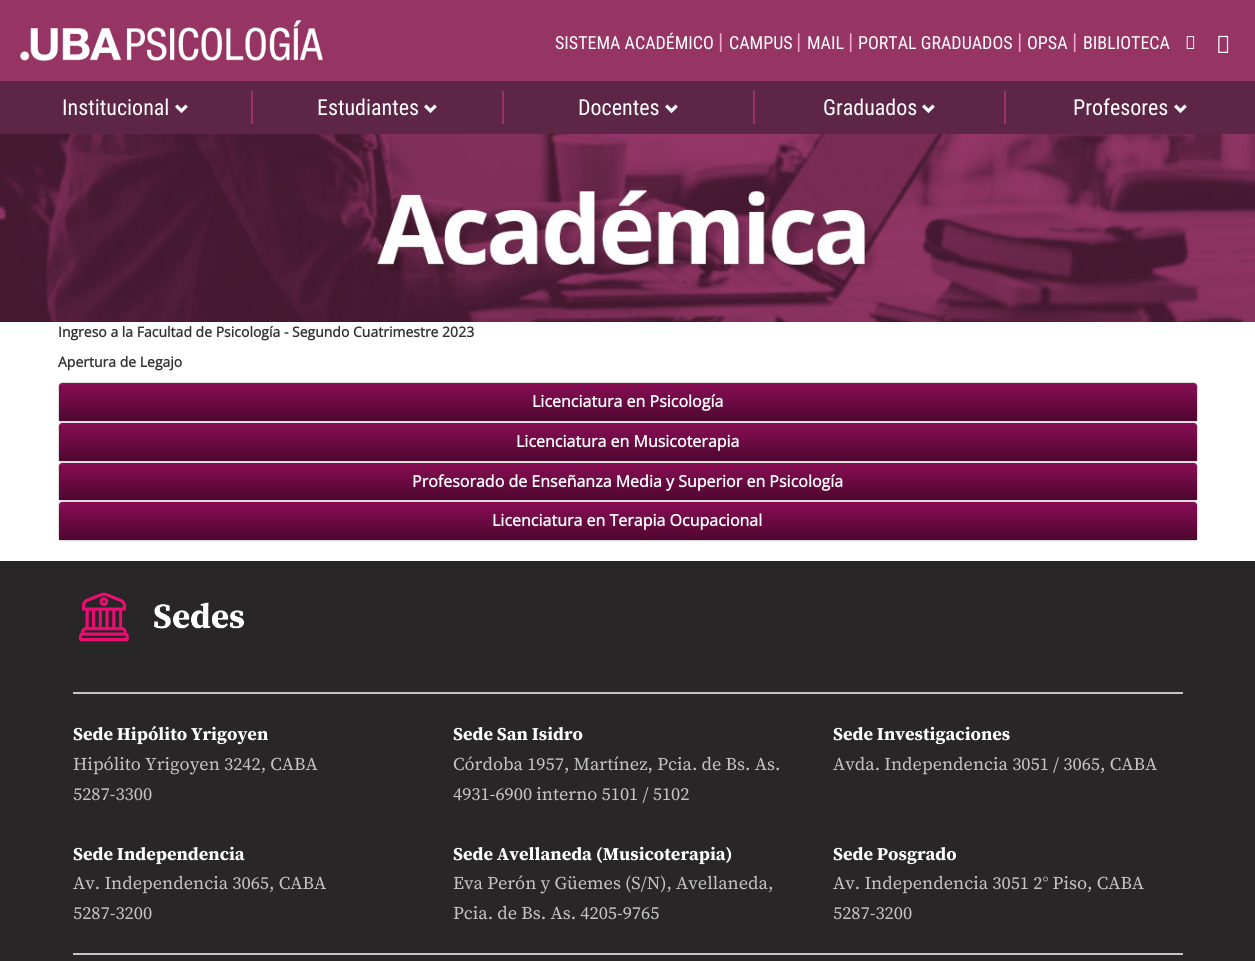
import math
import cairo

surface = cairo.ImageSurface(cairo.FORMAT_RGB24, 1255, 961)
ctx = cairo.Context(surface)
options = cairo.FontOptions()
options.set_hint_metrics(cairo.HINT_METRICS_OFF)
options.set_hint_style(cairo.HINT_STYLE_NONE)
ctx.set_font_options(options)
ctx.set_miter_limit(4)


def set_color(code):
    ctx.set_source_rgb(*(v / 255 for v in bytes.fromhex(code[-6:])))


def draw_text(x, y, s, family, size, color, bold=False, italic=False):
    ctx.select_font_face(family, cairo.FONT_SLANT_ITALIC if italic else cairo.FONT_SLANT_NORMAL, cairo.FONT_WEIGHT_BOLD if bold else cairo.FONT_WEIGHT_NORMAL)
    ctx.set_font_size(size)
    set_color(color)
    ctx.move_to(x, y)
    ctx.show_text(s)


def fill_rect(x, y, w, h, color):
    set_color(color)
    ctx.rectangle(x, y, w, h)
    ctx.fill()


def rounded_rect(x, y, w, h, r):
    ctx.new_sub_path()
    for i, (u, v) in enumerate([(x + w - r, y + h - r), (x + r, y + h - r), (x + r, y + r), (x + w - r, y + r)]):
        ctx.arc(u, v, r, i * math.pi / 2, (i + 1) * math.pi / 2)
    ctx.close_path()


def draw_shadow(x, y, w, h, r, blur, alpha):
    ctx.push_group_with_content(cairo.CONTENT_ALPHA)
    ctx.set_operator(cairo.OPERATOR_SOURCE)
    for i in range(15, -16, -2):
        e = blur * i / 6
        if min(w, h) + 2 * e > 0:
            ctx.set_source_rgba(0, 0, 0, alpha * math.erfc((i - 1) / 8.5) / 2)
            rounded_rect(x - e, y - e, w + 2 * e, h + 2 * e, max(0, min(r + e + blur * .6, min(w, h) / 2 + e)))
            ctx.fill()
    ctx.mask(ctx.pop_group())


def draw_image(path, x, y, w, h):
    ctx.save()
    ctx.set_source_surface(cairo.ImageSurface.create_from_png(path), x, y)
    ctx.rectangle(x, y, w, h)
    ctx.fill()
    ctx.restore()


set_color("#ffffff")
ctx.paint()
fill_rect(0, 0, 1255, 81, "#963564")
draw_image("assets/img1.png", 20, 20, 303, 41)
draw_text(555, 49, "SISTEMA ACADÉMICO", "Roboto Condensed", 18, "#ffffff")
draw_text(718, 49, "|", "Roboto Condensed", 22, "#f5a8ca")
draw_text(729, 49, "CAMPUS", "Roboto Condensed", 18, "#ffffff")
draw_text(796, 49, "|", "Roboto Condensed", 22, "#f5a8ca")
draw_text(807, 49, "MAIL", "Roboto Condensed", 18, "#ffffff")
draw_text(848, 49, "|", "Roboto Condensed", 22, "#f5a8ca")
draw_text(858, 49, "PORTAL GRADUADOS", "Roboto Condensed", 18, "#ffffff")
draw_text(1017, 49, "|", "Roboto Condensed", 22, "#f5a8ca")
draw_text(1027, 49, "OPSA", "Roboto Condensed", 18, "#ffffff")
draw_text(1072, 49, "|", "Roboto Condensed", 22, "#f5a8ca")
draw_text(1083, 49, "BIBLIOTECA", "Roboto Condensed", 18, "#ffffff")
draw_image("assets/img2.png", 1186, 36, 9, 13)
draw_image("assets/img3.png", 1218, 35, 11, 18)
fill_rect(0, 81, 1255, 53, "#5d2546")
draw_text(62, 115, "Institucional", "Roboto Condensed", 22, "#ffffff")
draw_image("assets/img4.png", 175, 104, 13, 10)
fill_rect(251, 91, 2, 33, "#963564")
draw_text(317, 115, "Estudiantes", "Roboto Condensed", 22, "#ffffff")
draw_image("assets/img4.png", 424, 104, 13, 10)
fill_rect(502, 91, 2, 33, "#963564")
draw_text(578, 115, "Docentes", "Roboto Condensed", 22, "#ffffff")
draw_image("assets/img4.png", 665, 104, 13, 10)
fill_rect(753, 91, 2, 33, "#963564")
draw_text(823, 115, "Graduados", "Roboto Condensed", 22, "#ffffff")
draw_image("assets/img4.png", 922, 104, 13, 10)
fill_rect(1004, 91, 2, 33, "#963564")
draw_text(1073, 115, "Profesores", "Roboto Condensed", 22, "#ffffff")
draw_image("assets/img4.png", 1174, 104, 13, 10)
draw_image("assets/img5.png", 0, 134, 1255, 188)
draw_text(58, 337, "Ingreso a la Facultad de Psicología - Segundo Cuatrimestre 2023", "Open Sans", 14, "#333333", bold=True)
draw_text(58, 367, "Apertura de Legajo", "Open Sans", 14, "#333333", bold=True)
set_color("#000000")
draw_shadow(58, 383, 1140, 40, 4, 0.5, 0.05)
rounded_rect(58.5, 382.5, 1139, 39, 3.5)
set_color("#dddddd")
ctx.set_line_width(1)
ctx.stroke()
gradient = cairo.LinearGradient(628, 383, 628, 421)
gradient.add_color_stop_rgba(0, 0.537, 0.051, 0.333, 1)
gradient.add_color_stop_rgba(1, 0.306, 0.027, 0.188, 1)
ctx.set_source(gradient)
ctx.new_path()
ctx.move_to(62, 383)
ctx.line_to(1194, 383)
ctx.curve_to(1195.5, 383, 1197, 384.5, 1197, 386)
ctx.line_to(1197, 421)
ctx.line_to(59, 421)
ctx.line_to(59, 386)
ctx.curve_to(59, 384.5, 60.5, 383, 62, 383)
ctx.close_path()
ctx.fill()
draw_text(532, 407, "Licenciatura en Psicología", "Open Sans", 16, "#ffffff", bold=True)
set_color("#000000")
draw_shadow(58, 423, 1140, 40, 4, 0.5, 0.05)
rounded_rect(58.5, 422.5, 1139, 39, 3.5)
set_color("#dddddd")
ctx.stroke()
gradient = cairo.LinearGradient(628, 423, 628, 461)
gradient.add_color_stop_rgba(0, 0.537, 0.051, 0.333, 1)
gradient.add_color_stop_rgba(1, 0.306, 0.027, 0.188, 1)
ctx.set_source(gradient)
ctx.new_path()
ctx.move_to(62, 423)
ctx.line_to(1194, 423)
ctx.curve_to(1195.5, 423, 1197, 424.5, 1197, 426)
ctx.line_to(1197, 461)
ctx.line_to(59, 461)
ctx.line_to(59, 426)
ctx.curve_to(59, 424.5, 60.5, 423, 62, 423)
ctx.close_path()
ctx.fill()
draw_text(516, 447, "Licenciatura en Musicoterapia", "Open Sans", 16, "#ffffff", bold=True)
set_color("#000000")
draw_shadow(58, 463, 1140, 39, 4, 0.5, 0.05)
rounded_rect(58.5, 462.5, 1139, 38, 3.5)
set_color("#dddddd")
ctx.stroke()
gradient = cairo.LinearGradient(628, 463, 628, 500)
gradient.add_color_stop_rgba(0, 0.537, 0.051, 0.333, 1)
gradient.add_color_stop_rgba(1, 0.306, 0.027, 0.188, 1)
ctx.set_source(gradient)
ctx.new_path()
ctx.move_to(62, 463)
ctx.line_to(1194, 463)
ctx.curve_to(1195.5, 463, 1197, 464.5, 1197, 466)
ctx.line_to(1197, 500)
ctx.line_to(59, 500)
ctx.line_to(59, 466)
ctx.curve_to(59, 464.5, 60.5, 463, 62, 463)
ctx.close_path()
ctx.fill()
draw_text(412, 487, "Profesorado de Enseñanza Media y Superior en Psicología", "Open Sans", 16, "#ffffff", bold=True)
set_color("#000000")
draw_shadow(58, 502, 1140, 40, 4, 0.5, 0.05)
rounded_rect(58.5, 501.5, 1139, 39, 3.5)
set_color("#dddddd")
ctx.stroke()
gradient = cairo.LinearGradient(628, 502, 628, 540)
gradient.add_color_stop_rgba(0, 0.537, 0.051, 0.333, 1)
gradient.add_color_stop_rgba(1, 0.306, 0.027, 0.188, 1)
ctx.set_source(gradient)
ctx.new_path()
ctx.move_to(62, 502)
ctx.line_to(1194, 502)
ctx.curve_to(1195.5, 502, 1197, 503.5, 1197, 505)
ctx.line_to(1197, 540)
ctx.line_to(59, 540)
ctx.line_to(59, 505)
ctx.curve_to(59, 503.5, 60.5, 502, 62, 502)
ctx.close_path()
ctx.fill()
draw_text(492, 526, "Licenciatura en Terapia Ocupacional", "Open Sans", 16, "#ffffff", bold=True)
fill_rect(0, 561, 1255, 400, "#292627")
draw_image("assets/img6.png", 79, 592, 166, 49)
fill_rect(73, 692, 1110, 2, "#c2c4c6")
draw_text(73, 740, "Sede Hipólito Yrigoyen", "Source Serif 4", 18, "#ffffff", bold=True)
draw_text(73, 770, "Hipólito Yrigoyen 3242, CABA", "Source Serif 4", 18, "#c2c4c6")
draw_text(73, 800, "5287-3300", "Source Serif 4", 18, "#c2c4c6")
draw_text(73, 860, "Sede Independencia", "Source Serif 4", 18, "#ffffff", bold=True)
draw_text(73, 889, "Av. Independencia 3065, CABA", "Source Serif 4", 18, "#c2c4c6")
draw_text(73, 919, "5287-3200", "Source Serif 4", 18, "#c2c4c6")
draw_text(453, 740, "Sede San Isidro", "Source Serif 4", 18, "#ffffff", bold=True)
draw_text(453, 770, "Córdoba 1957, Martínez, Pcia. de Bs. As.", "Source Serif 4", 18, "#c2c4c6")
draw_text(453, 800, "4931-6900 interno 5101 / 5102", "Source Serif 4", 18, "#c2c4c6")
draw_text(453, 860, "Sede Avellaneda (Musicoterapia)", "Source Serif 4", 18, "#ffffff", bold=True)
draw_text(453, 889, "Eva Perón y Güemes (S/N), Avellaneda,", "Source Serif 4", 18, "#c2c4c6")
draw_text(453, 919, "Pcia. de Bs. As. 4205-9765", "Source Serif 4", 18, "#c2c4c6")
draw_text(833, 740, "Sede Investigaciones", "Source Serif 4", 18, "#ffffff", bold=True)
draw_text(833, 770, "Avda. Independencia 3051 / 3065, CABA", "Source Serif 4", 18, "#c2c4c6")
draw_text(833, 860, "Sede Posgrado", "Source Serif 4", 18, "#ffffff", bold=True)
draw_text(833, 889, "Av. Independencia 3051 2° Piso, CABA", "Source Serif 4", 18, "#c2c4c6")
draw_text(833, 919, "5287-3200", "Source Serif 4", 18, "#c2c4c6")
fill_rect(73, 953, 1110, 2, "#c2c4c6")
surface.write_to_png("output.png")
